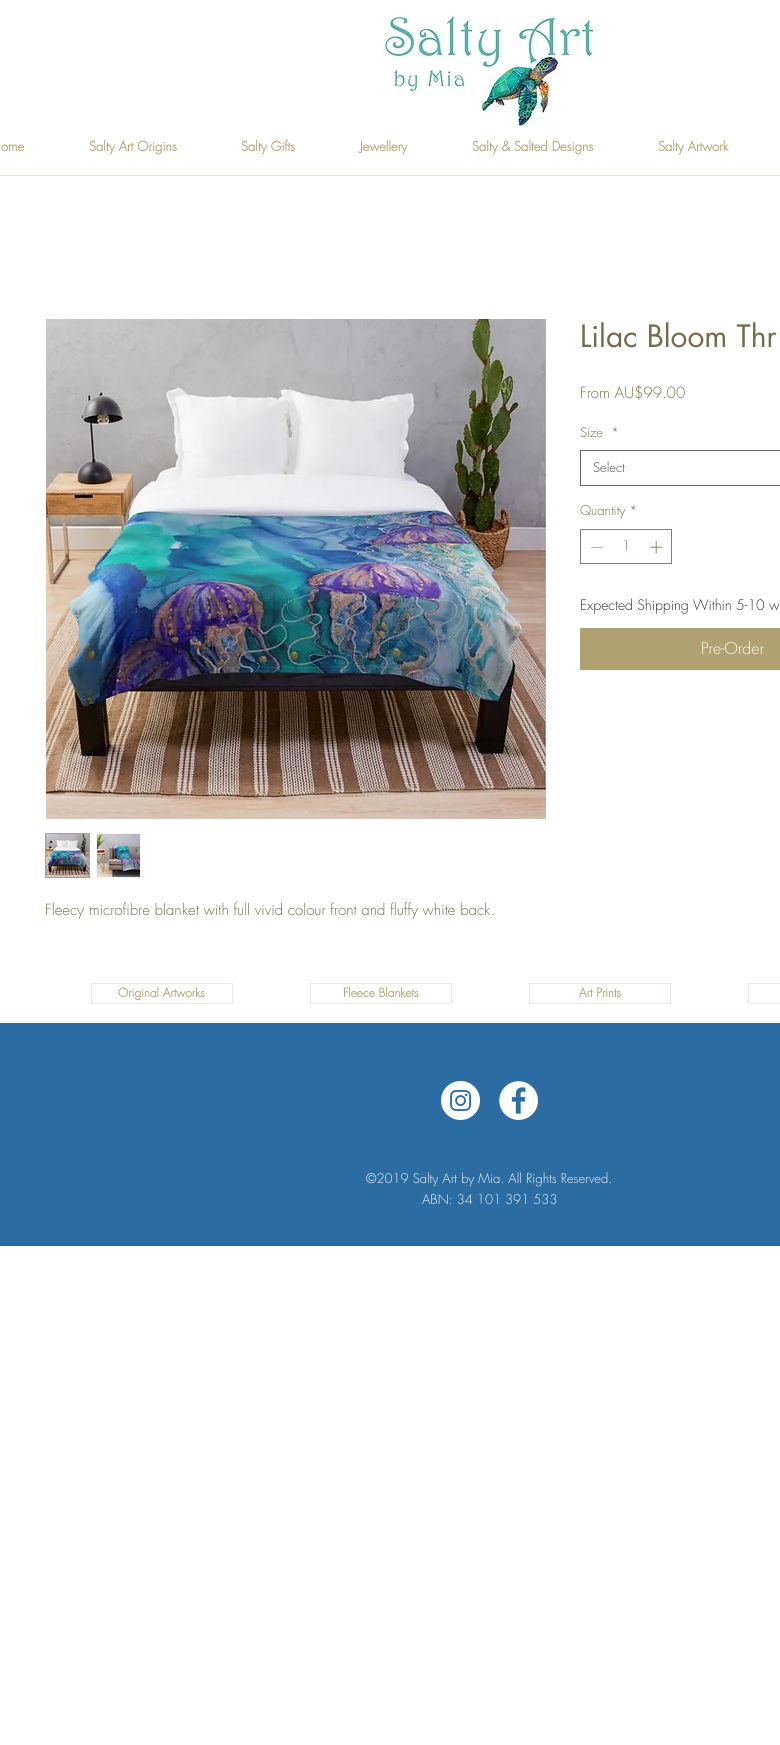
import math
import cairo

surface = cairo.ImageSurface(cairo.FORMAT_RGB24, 780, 1745)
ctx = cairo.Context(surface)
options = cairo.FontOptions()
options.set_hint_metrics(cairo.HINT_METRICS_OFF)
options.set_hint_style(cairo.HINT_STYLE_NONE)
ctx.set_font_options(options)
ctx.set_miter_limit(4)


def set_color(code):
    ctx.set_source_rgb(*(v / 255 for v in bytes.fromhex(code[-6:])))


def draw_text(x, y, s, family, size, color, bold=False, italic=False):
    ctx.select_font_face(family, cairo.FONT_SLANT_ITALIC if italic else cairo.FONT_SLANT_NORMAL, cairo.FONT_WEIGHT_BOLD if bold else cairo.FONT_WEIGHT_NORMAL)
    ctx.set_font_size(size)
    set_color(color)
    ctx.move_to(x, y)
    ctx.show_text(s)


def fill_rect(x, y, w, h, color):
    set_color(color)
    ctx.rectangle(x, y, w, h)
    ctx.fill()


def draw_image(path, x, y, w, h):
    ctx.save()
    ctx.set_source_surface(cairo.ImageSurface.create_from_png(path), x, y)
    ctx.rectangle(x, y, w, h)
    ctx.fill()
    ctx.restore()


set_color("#ffffff")
ctx.paint()
draw_image("assets/img1.png", 382, 13, 213, 114)
fill_rect(0, 175, 780, 1, "#e5e1d3")
draw_text(1, 151, "ome", "futura", 13, "#b0a171", bold=True)
draw_text(89, 151, "Salty Art Origins", "futura", 13, "#b0a171", bold=True)
draw_text(241, 151, "Salty Gifts", "futura", 13, "#b0a171", bold=True)
draw_text(360, 151, "Jewellery", "futura", 13, "#b0a171", bold=True)
draw_text(472, 151, "Salty & Salted Designs", "futura", 13, "#b0a171", bold=True)
draw_text(658, 151, "Salty Artwork", "futura", 13, "#b0a171", bold=True)
draw_text(580, 347, "Lilac Bloom Thr", "futura", 30, "#756b4b")
draw_text(580, 398, "From AU$99.00", "futura Light", 15, "#756b4b")
draw_text(580, 437, "Size", "futura Light", 13, "#756b4b")
draw_text(611, 437, "*", "futura Light", 13, "#756b4b")
ctx.rectangle(580.5, 450.5, 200, 35)
set_color("#666666")
ctx.set_line_width(1)
ctx.stroke()
draw_text(593, 472, "Select", "futura Light", 13, "#444444")
draw_text(580, 515, "Quantity *", "futura Light", 13, "#756b4b")
ctx.rectangle(580.5, 529.5, 91, 34)
set_color("#808080")
ctx.stroke()
set_color("#756b4b")
ctx.set_fill_rule(cairo.FILL_RULE_EVEN_ODD)
ctx.new_path()
ctx.move_to(603, 547)
ctx.line_to(603, 547.5)
ctx.line_to(591, 547.5)
ctx.line_to(591, 547)
ctx.close_path()
ctx.fill()
draw_text(622, 550, "1", "futura Light", 13, "#756b4b")
draw_image("assets/img2.png", 650, 541, 13, 13)
draw_text(580, 610, "Expected Shipping Within 5-10 w", "futura Light", 14, "#2c2c2b")
fill_rect(580, 628, 200, 42, "#b0a171")
draw_text(701, 654, "Pre-Order", "futura Light", 16, "#ffffff")
draw_image("assets/img3.png", 46, 319, 500, 500)
ctx.rectangle(45.5, 833.5, 44, 44)
set_color("#b0a171")
ctx.stroke()
draw_image("assets/img4.png", 46, 834, 43, 43)
fill_rect(96, 833, 45, 45, "#f6f5f5")
draw_image("assets/img5.png", 97, 834, 43, 43)
draw_text(45, 915, "Fleecy microfibre blanket with full vivid colour front and fluffy white back.", "futura Light", 15, "#756b4b")
ctx.rectangle(91.5, 983.5, 141, 20)
set_color("#ece8dd")
ctx.stroke()
draw_text(118, 997, "Original Artworks", "futura", 12, "#b0a171", bold=True)
ctx.rectangle(310.5, 983.5, 141, 20)
set_color("#ece8dd")
ctx.stroke()
draw_text(343, 997, "Fleece Blankets", "futura", 12, "#b0a171", bold=True)
ctx.rectangle(529.5, 983.5, 141, 20)
set_color("#ece8dd")
ctx.stroke()
draw_text(579, 997, "Art Prints", "futura", 12, "#b0a171", bold=True)
ctx.rectangle(748.5, 983.5, 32, 20)
set_color("#ece8dd")
ctx.stroke()
fill_rect(0, 1023, 780, 223, "#2b6ca3")
draw_image("assets/img6.png", 441, 1081, 39, 39)
draw_image("assets/img7.png", 499, 1081, 39, 39)
draw_text(366, 1183, "©2019 Salty Art by Mia. All Rights Reserved.", "futura Light", 13, "#f6f5f5")
draw_text(422, 1204, "ABN: 34 101 391 533", "futura Light", 13, "#f6f5f5")
surface.write_to_png("output.png")
